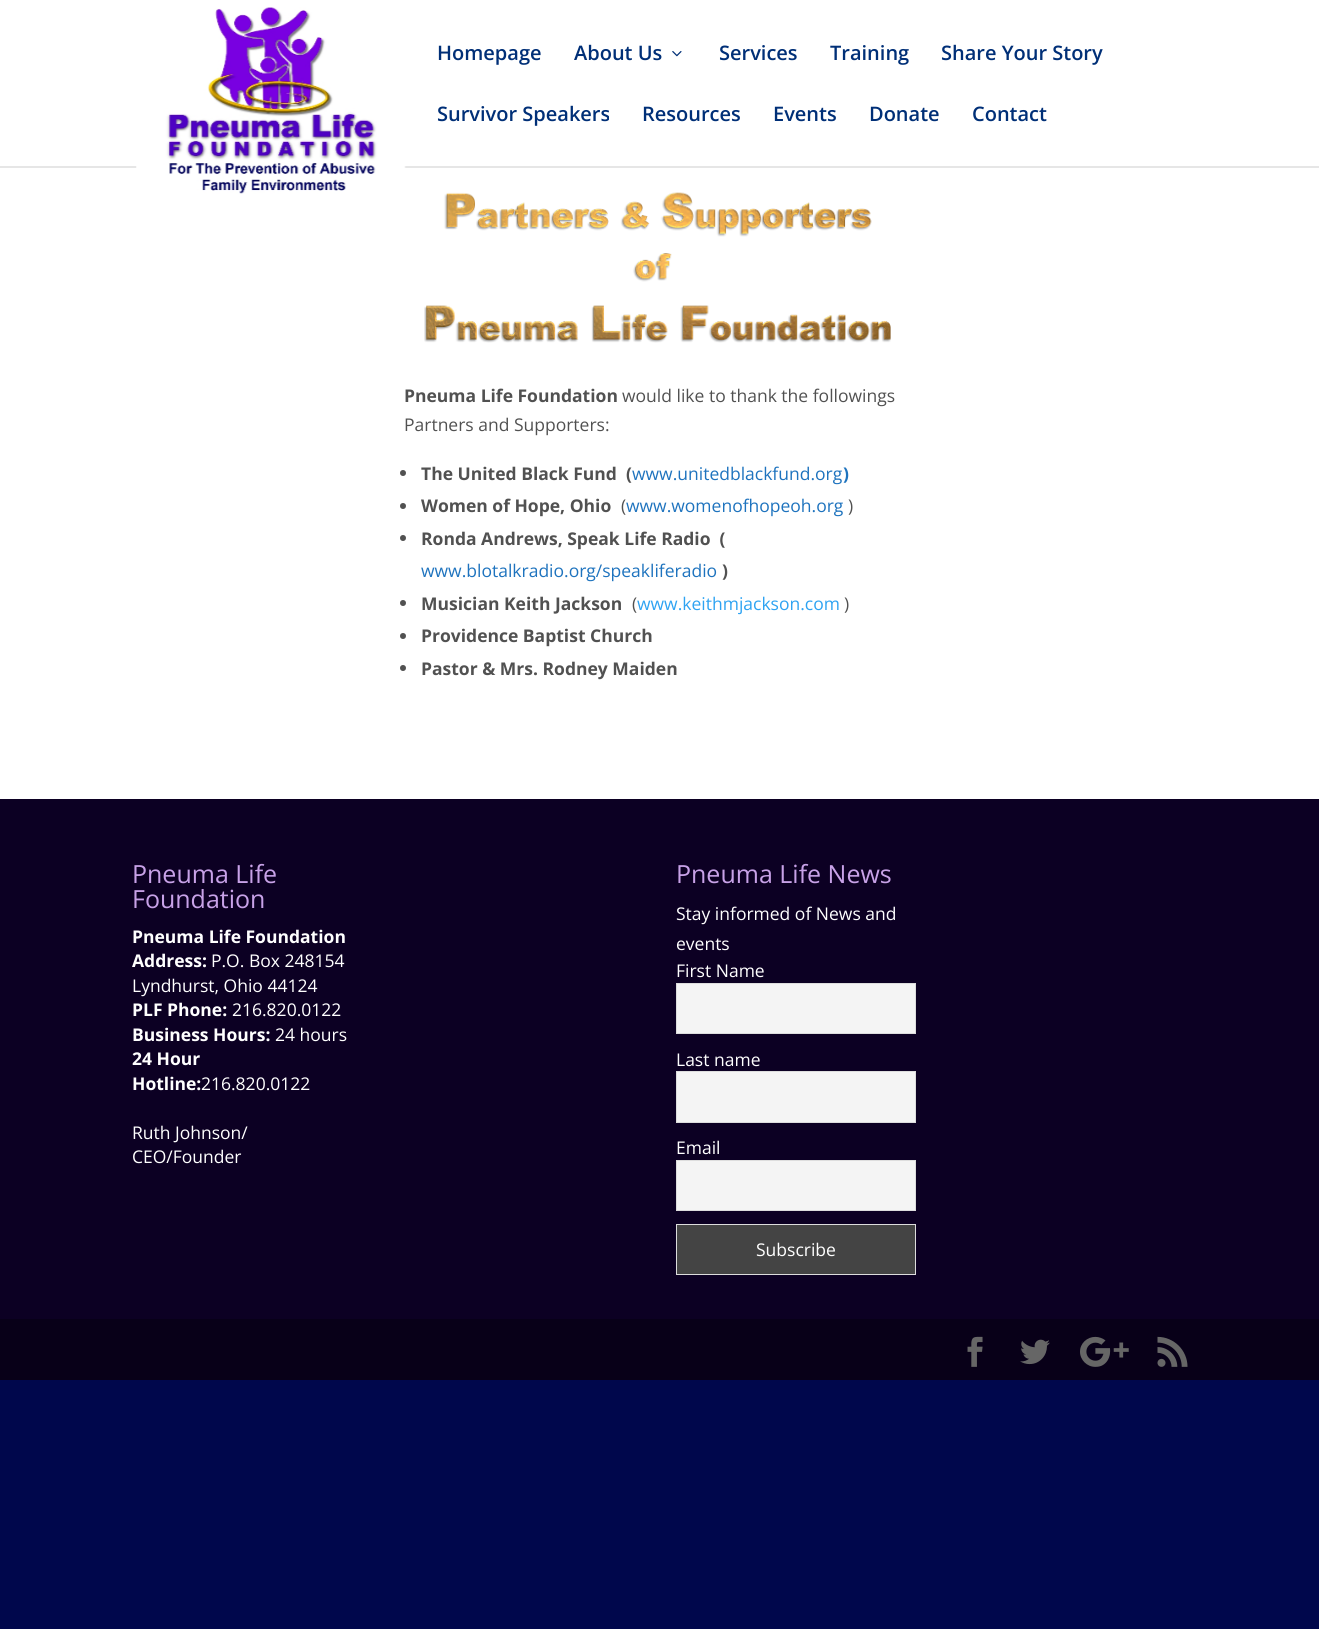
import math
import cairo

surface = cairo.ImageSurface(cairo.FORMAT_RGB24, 1319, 1629)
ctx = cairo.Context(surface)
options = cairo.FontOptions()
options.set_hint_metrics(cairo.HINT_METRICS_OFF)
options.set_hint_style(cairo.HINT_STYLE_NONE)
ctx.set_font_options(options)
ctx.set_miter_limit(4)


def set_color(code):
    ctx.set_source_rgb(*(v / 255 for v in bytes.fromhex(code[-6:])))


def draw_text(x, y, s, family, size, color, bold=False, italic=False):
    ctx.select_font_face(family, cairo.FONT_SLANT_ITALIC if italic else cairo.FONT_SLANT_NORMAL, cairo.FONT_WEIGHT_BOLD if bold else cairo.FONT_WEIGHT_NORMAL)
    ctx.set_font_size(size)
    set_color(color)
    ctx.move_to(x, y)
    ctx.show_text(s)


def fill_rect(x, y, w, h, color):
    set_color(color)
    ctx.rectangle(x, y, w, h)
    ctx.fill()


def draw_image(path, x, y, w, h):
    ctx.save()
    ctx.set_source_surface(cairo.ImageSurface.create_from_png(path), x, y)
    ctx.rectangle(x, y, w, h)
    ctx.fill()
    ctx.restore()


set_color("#00074c")
ctx.paint()
fill_rect(0, 166, 1319, 2, "#e6e6e6")
fill_rect(0, 0, 1319, 166, "#ffffff")
fill_rect(0, 168, 1319, 631, "#ffffff")
draw_image("assets/img1.png", 136, 7, 270, 187)
draw_text(437, 60, "Homepage", "Open Sans SemiBold", 20, "#002f77")
draw_text(574, 60, "About Us", "Open Sans SemiBold", 20, "#002f77")
draw_image("assets/img2.png", 672, 51, 10, 6)
draw_text(719, 60, "Services", "Open Sans SemiBold", 20, "#002f77")
draw_text(830, 60, "Training", "Open Sans SemiBold", 20, "#002f77")
draw_text(941, 60, "Share Your Story", "Open Sans SemiBold", 20, "#002f77")
draw_text(437, 121, "Survivor Speakers", "Open Sans SemiBold", 20, "#002f77")
draw_text(642, 121, "Resources", "Open Sans SemiBold", 20, "#002f77")
draw_text(773, 121, "Events", "Open Sans SemiBold", 20, "#002f77")
draw_text(869, 121, "Donate", "Open Sans SemiBold", 20, "#002f77")
draw_text(972, 121, "Contact", "Open Sans SemiBold", 20, "#002f77")
draw_image("assets/img3.png", 424, 192, 467, 151)
draw_text(404, 402, "Pneuma Life Foundation", "Open Sans", 17.5, "#515151", bold=True)
draw_text(622, 402, "would like to thank the followings", "Open Sans", 17.5, "#515151")
draw_text(404, 431, "Partners and Supporters:", "Open Sans", 17.5, "#515151")
ctx.new_path()
ctx.arc(403, 473, 3, 0, 2 * math.pi)
ctx.fill()
draw_text(421, 480, "The United Black Fund  (", "Open Sans", 17.5, "#515151", bold=True)
draw_text(632, 480, "www.unitedblackfund.org", "Open Sans", 17.5, "#1e73be")
draw_text(843, 480, ")", "Open Sans", 17.5, "#1e73be", bold=True)
set_color("#515151")
ctx.new_path()
ctx.arc(403, 506, 3, 0, 2 * math.pi)
ctx.fill()
draw_text(421, 512, "Women of Hope, Ohio", "Open Sans", 17.5, "#515151", bold=True)
draw_text(621, 512, "(", "Open Sans", 17.5, "#515151")
draw_text(626, 512, "www.womenofhopeoh.org", "Open Sans", 17.5, "#1e73be")
draw_text(848, 512, ")", "Open Sans", 17.5, "#515151")
ctx.new_path()
ctx.arc(403, 538, 3, 0, 2 * math.pi)
ctx.fill()
draw_text(421, 545, "Ronda Andrews, Speak Life Radio  (", "Open Sans", 17.5, "#515151", bold=True)
draw_text(421, 577, "www.blotalkradio.org/speakliferadio", "Open Sans", 17.5, "#1e73be")
draw_text(722, 577, ")", "Open Sans", 17.5, "#515151", bold=True)
ctx.new_path()
ctx.arc(403, 603, 3, 0, 2 * math.pi)
ctx.fill()
draw_text(421, 610, "Musician Keith Jackson", "Open Sans", 17.5, "#515151", bold=True)
draw_text(632, 610, "(", "Open Sans", 17.5, "#515151")
draw_text(637, 610, "www.keithmjackson.com", "Open Sans", 17.5, "#2ea3f2")
draw_text(844, 610, ")", "Open Sans", 17.5, "#515151")
ctx.new_path()
ctx.arc(403, 636, 3, 0, 2 * math.pi)
ctx.fill()
draw_text(421, 642, "Providence Baptist Church", "Open Sans", 17.5, "#515151", bold=True)
ctx.new_path()
ctx.arc(403, 668, 3, 0, 2 * math.pi)
ctx.fill()
draw_text(421, 675, "Pastor & Mrs. Rodney Maiden", "Open Sans", 17.5, "#515151", bold=True)
fill_rect(0, 799, 1319, 520, "#0c0023")
draw_text(132, 883, "Pneuma Life", "Open Sans", 25, "#c8a2e8")
draw_text(132, 908, "Foundation", "Open Sans", 25, "#c8a2e8")
draw_text(132, 943, "Pneuma Life Foundation", "Open Sans", 17.5, "#ffffff", bold=True)
draw_text(132, 967, "Address:", "Open Sans", 17.5, "#ffffff", bold=True)
draw_text(211, 967, "P.O. Box 248154", "Open Sans", 17.5, "#ffffff")
draw_text(132, 992, "Lyndhurst, Ohio 44124", "Open Sans", 17.5, "#ffffff")
draw_text(132, 1016, "PLF Phone:", "Open Sans", 17.5, "#ffffff", bold=True)
draw_text(232, 1016, "216.820.0122", "Open Sans", 17.5, "#ffffff")
draw_text(132, 1041, "Business Hours:", "Open Sans", 17.5, "#ffffff", bold=True)
draw_text(275, 1041, "24 hours", "Open Sans", 17.5, "#ffffff")
draw_text(132, 1065, "24 Hour", "Open Sans", 17.5, "#ffffff", bold=True)
draw_text(132, 1090, "Hotline:", "Open Sans", 17.5, "#ffffff", bold=True)
draw_text(201, 1090, "216.820.0122", "Open Sans", 17.5, "#ffffff")
draw_text(132, 1139, "Ruth Johnson/", "Open Sans", 17.5, "#ffffff")
draw_text(132, 1163, "CEO/Founder", "Open Sans", 17.5, "#ffffff")
draw_text(676, 883, "Pneuma Life News", "Open Sans", 25, "#c8a2e8")
draw_text(676, 920, "Stay informed of News and", "Open Sans", 17.5, "#ffffff")
draw_text(676, 950, "events", "Open Sans", 17.5, "#ffffff")
draw_text(676, 977, "First Name", "Open Sans", 17.5, "#ffffff")
set_color("#f4f4f4")
ctx.rectangle(676.5, 983.5, 239, 50)
ctx.fill_preserve()
set_color("#dddddd")
ctx.set_line_width(1)
ctx.stroke()
draw_text(676, 1066, "Last name", "Open Sans", 17.5, "#ffffff")
set_color("#f4f4f4")
ctx.rectangle(676.5, 1071.5, 239, 51)
ctx.fill_preserve()
set_color("#dddddd")
ctx.stroke()
draw_text(676, 1154, "Email", "Open Sans", 17.5, "#ffffff")
set_color("#f4f4f4")
ctx.rectangle(676.5, 1160.5, 239, 50)
ctx.fill_preserve()
set_color("#dddddd")
ctx.stroke()
set_color("#444444")
ctx.rectangle(676.5, 1224.5, 239, 50)
ctx.fill_preserve()
set_color("#dddddd")
ctx.stroke()
draw_text(756, 1256, "Subscribe", "Open Sans", 17.5, "#ffffff")
fill_rect(0, 1319, 1319, 61, "#080018")
draw_image("assets/img4.png", 967, 1336, 16, 31)
draw_image("assets/img5.png", 1020, 1339, 30, 26)
draw_image("assets/img6.png", 1080, 1336, 49, 31)
draw_image("assets/img7.png", 1157, 1336, 31, 31)
surface.write_to_png("output.png")
